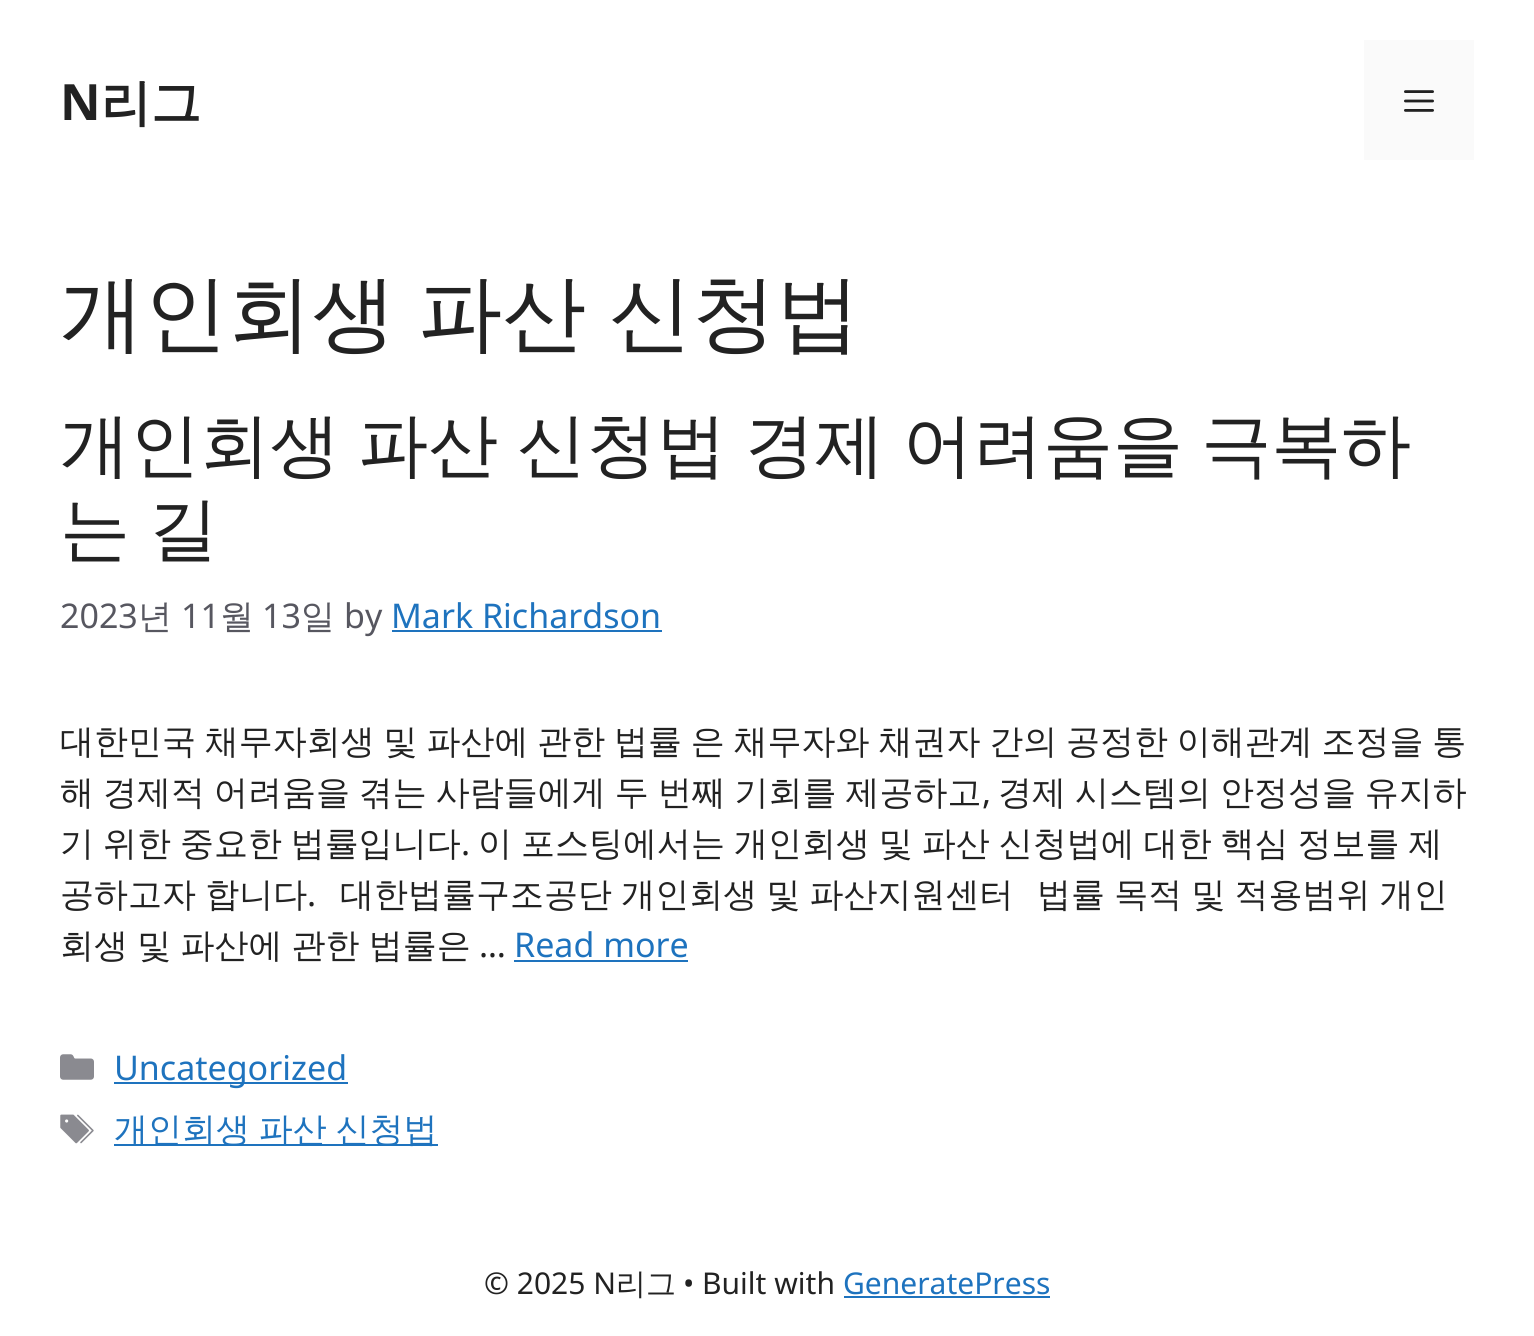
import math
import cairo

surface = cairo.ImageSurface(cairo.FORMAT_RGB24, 1534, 1336)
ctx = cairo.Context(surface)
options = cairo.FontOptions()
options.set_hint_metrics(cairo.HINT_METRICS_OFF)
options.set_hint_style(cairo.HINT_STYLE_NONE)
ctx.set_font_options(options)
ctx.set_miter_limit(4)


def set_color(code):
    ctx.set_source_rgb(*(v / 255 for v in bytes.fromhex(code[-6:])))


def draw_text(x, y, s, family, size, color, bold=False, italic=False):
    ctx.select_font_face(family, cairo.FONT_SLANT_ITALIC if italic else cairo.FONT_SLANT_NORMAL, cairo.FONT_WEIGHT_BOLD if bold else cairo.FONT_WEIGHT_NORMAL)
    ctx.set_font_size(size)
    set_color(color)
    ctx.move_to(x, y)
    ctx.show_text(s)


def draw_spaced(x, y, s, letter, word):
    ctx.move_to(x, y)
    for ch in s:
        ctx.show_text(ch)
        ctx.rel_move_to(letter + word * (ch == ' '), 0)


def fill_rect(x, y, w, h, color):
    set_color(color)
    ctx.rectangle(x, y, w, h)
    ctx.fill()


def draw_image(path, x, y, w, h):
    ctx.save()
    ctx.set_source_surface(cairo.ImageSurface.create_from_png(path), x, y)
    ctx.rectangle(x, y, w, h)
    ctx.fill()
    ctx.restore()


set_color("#ffffff")
ctx.paint()
draw_text(60, 120, "N", "Noto Sans", 50, "#222222", bold=True)
draw_text(101, 120, "리그", "WenQuanYi Zen Hei", 50, "#222222", bold=True)
fill_rect(1364, 40, 110, 120, "#fafafa")
draw_image("assets/img1.png", 1404, 90, 30, 22)
ctx.select_font_face("WenQuanYi Zen Hei Medium")
ctx.set_font_size(84)
set_color("#222222")
draw_spaced(60, 342, "개인회생 파산 신청법", 0, -3)
ctx.set_font_size(70)
draw_spaced(60, 469, "개인회생 파산 신청법 경제 어려움을 극복하", 0, -2.75)
draw_spaced(60, 553, "는 길", 0, -2.75)
draw_text(60, 628, "2023", "Noto Sans", 34, "#575760")
draw_text(138, 628, "년", "WenQuanYi Zen Hei Medium", 34, "#575760")
draw_text(181, 628, "11", "Noto Sans", 34, "#575760")
draw_text(220, 628, "월", "WenQuanYi Zen Hei Medium", 34, "#575760")
draw_text(262, 628, "13", "Noto Sans", 34, "#575760")
draw_text(301, 628, "일", "WenQuanYi Zen Hei Medium", 34, "#575760")
draw_text(344, 628, "by", "Noto Sans", 34, "#575760")
draw_text(391, 628, "Mark Richardson", "Noto Sans", 34, "#1e73be")
fill_rect(392, 630, 270, 2, "#1e73be")
ctx.select_font_face("WenQuanYi Zen Hei Medium")
set_color("#222222")
draw_spaced(60, 753, "대한민국 채무자회생 및 파산에 관한 법률 은 채무자와 채권자 간의 공정한 이해관계 조정을 통", 0, -1.4)
draw_spaced(60, 804, "해 경제적 어려움을 겪는 사람들에게 두 번째 기회를 제공하고", 0, -1.25)
draw_text(982, 804, ",", "Noto Sans", 34, "#222222")
ctx.select_font_face("WenQuanYi Zen Hei Medium")
draw_spaced(998, 804, "경제 시스템의 안정성을 유지하", 0, -1.25)
draw_spaced(60, 855, "기 위한 중요한 법률입니다", 0, -1.25)
draw_text(461, 855, ".", "Noto Sans", 34, "#222222")
ctx.select_font_face("WenQuanYi Zen Hei Medium")
draw_spaced(478, 855, "이 포스팅에서는 개인회생 및 파산 신청법에 대한 핵심 정보를 제", 0, -1.25)
draw_spaced(60, 906, "공하고자 합니다", 0, -1)
draw_text(307, 906, ".", "Noto Sans", 34, "#222222")
ctx.select_font_face("WenQuanYi Zen Hei Medium")
draw_spaced(340, 906, "대한법률구조공단 개인회생 및 파산지원센터", 0, -1)
draw_spaced(1037, 906, "법률 목적 및 적용범위 개인", 0, -1)
draw_spaced(60, 957, "회생 및 파산에 관한 법률은", 0, -1)
draw_text(479, 957, "…", "Noto Sans", 34, "#222222")
draw_text(514, 957, "Read more", "Noto Sans", 34, "#1e73be")
fill_rect(514, 960, 174, 2, "#1e73be")
draw_image("assets/img2.png", 60, 1054, 34, 26)
fill_rect(114, 1082, 234, 2, "#1e73be")
draw_text(114, 1080, "Uncategorized", "Noto Sans", 34, "#1e73be")
draw_image("assets/img3.png", 60, 1114, 34, 30)
fill_rect(114, 1144, 324, 2, "#1e73be")
ctx.select_font_face("WenQuanYi Zen Hei Medium")
draw_spaced(114, 1141, "개인회생 파산 신청법", 0, -1.4)
draw_text(484, 1294, "© 2025 N", "Noto Sans", 30, "#222222")
draw_text(616, 1294, "리그", "WenQuanYi Zen Hei Medium", 30, "#222222")
draw_text(683, 1294, "• Built with", "Noto Sans", 30, "#222222")
draw_text(843, 1294, "GeneratePress", "Noto Sans", 30, "#1e73be")
fill_rect(844, 1296, 206, 2, "#1e73be")
surface.write_to_png("output.png")
